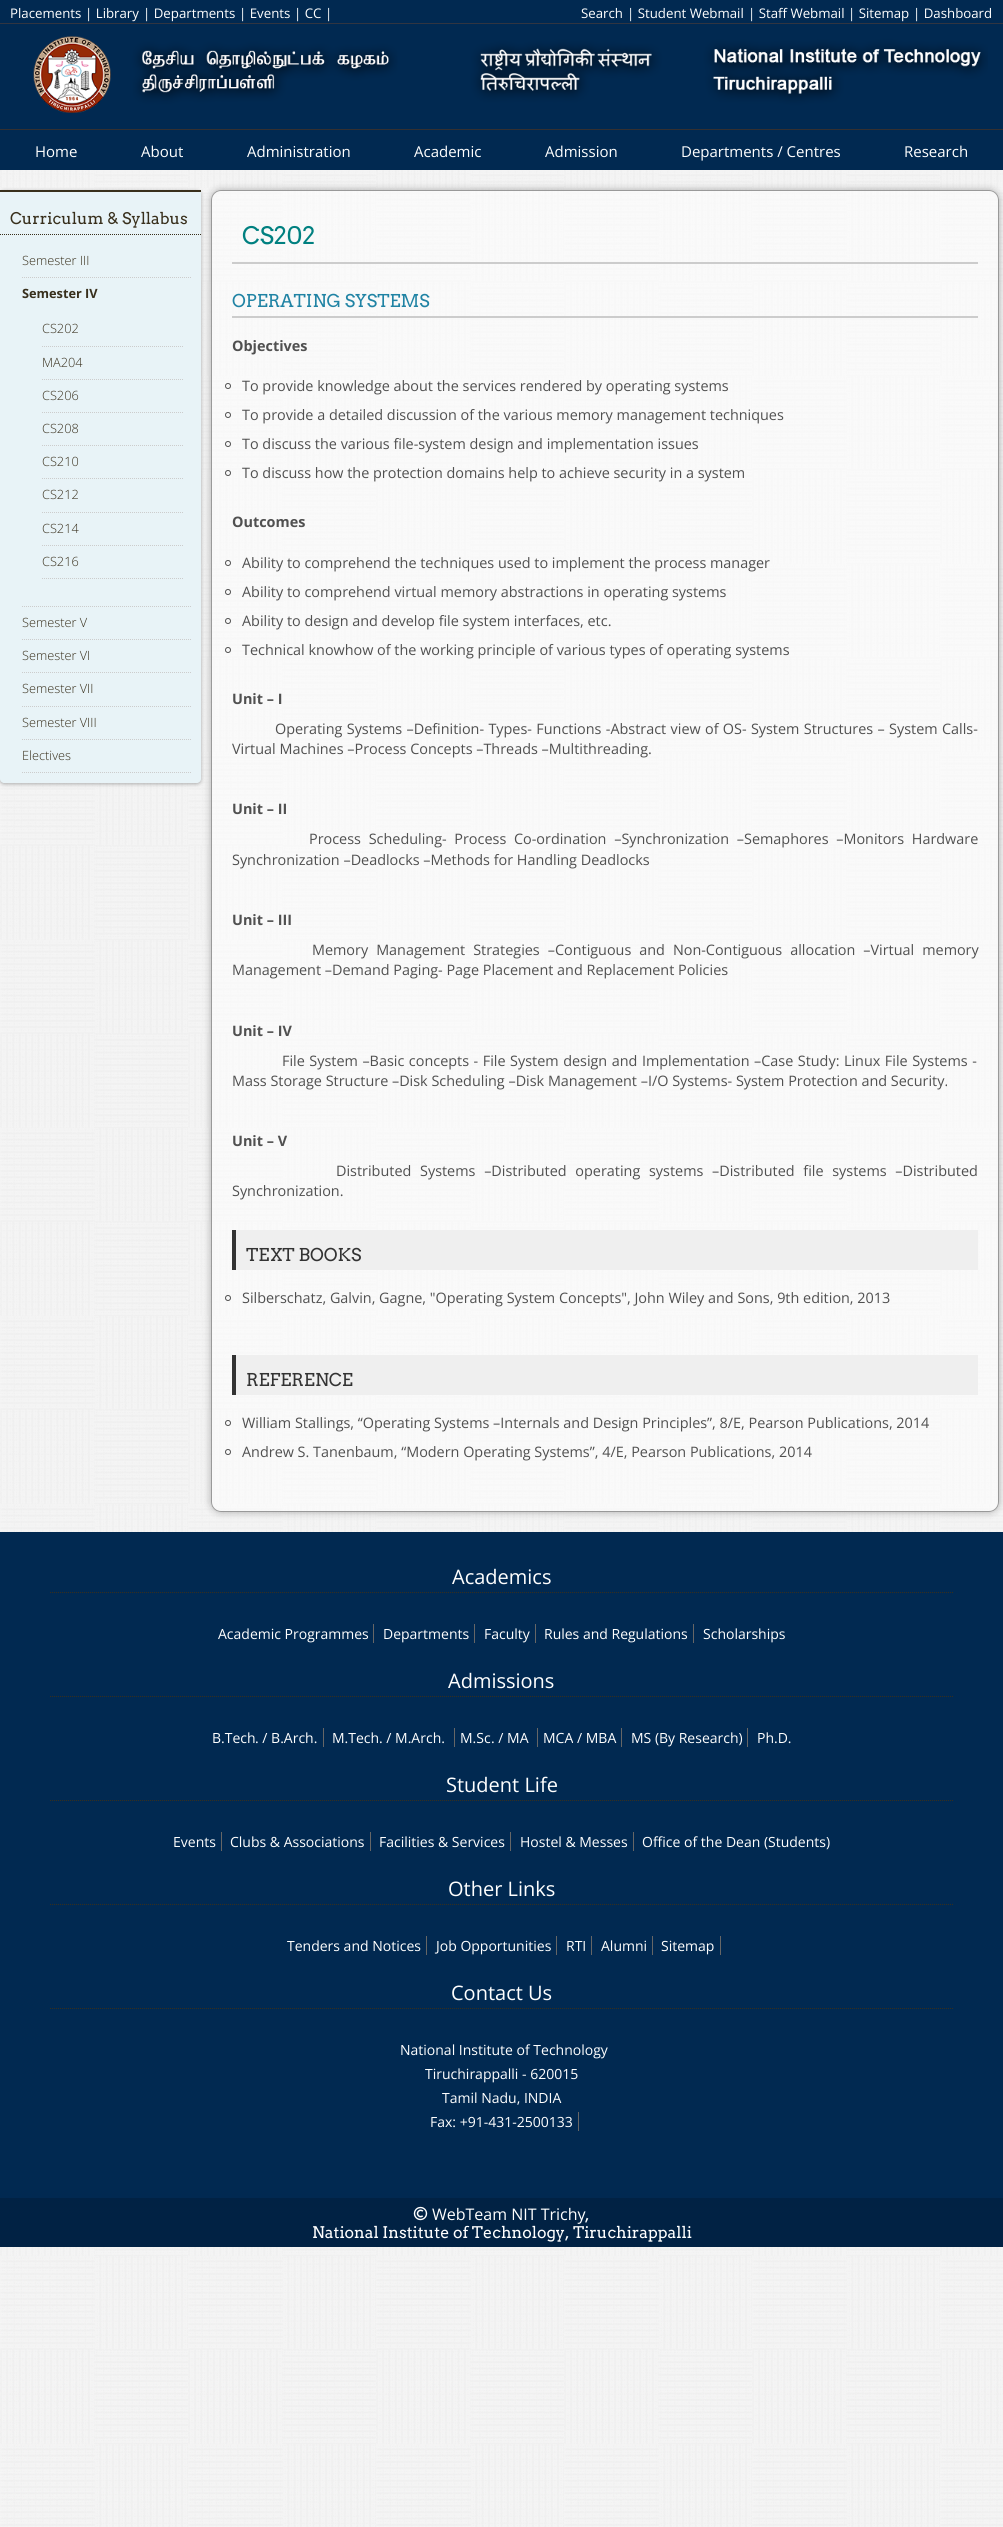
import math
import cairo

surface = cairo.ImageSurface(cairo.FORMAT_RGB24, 1003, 2527)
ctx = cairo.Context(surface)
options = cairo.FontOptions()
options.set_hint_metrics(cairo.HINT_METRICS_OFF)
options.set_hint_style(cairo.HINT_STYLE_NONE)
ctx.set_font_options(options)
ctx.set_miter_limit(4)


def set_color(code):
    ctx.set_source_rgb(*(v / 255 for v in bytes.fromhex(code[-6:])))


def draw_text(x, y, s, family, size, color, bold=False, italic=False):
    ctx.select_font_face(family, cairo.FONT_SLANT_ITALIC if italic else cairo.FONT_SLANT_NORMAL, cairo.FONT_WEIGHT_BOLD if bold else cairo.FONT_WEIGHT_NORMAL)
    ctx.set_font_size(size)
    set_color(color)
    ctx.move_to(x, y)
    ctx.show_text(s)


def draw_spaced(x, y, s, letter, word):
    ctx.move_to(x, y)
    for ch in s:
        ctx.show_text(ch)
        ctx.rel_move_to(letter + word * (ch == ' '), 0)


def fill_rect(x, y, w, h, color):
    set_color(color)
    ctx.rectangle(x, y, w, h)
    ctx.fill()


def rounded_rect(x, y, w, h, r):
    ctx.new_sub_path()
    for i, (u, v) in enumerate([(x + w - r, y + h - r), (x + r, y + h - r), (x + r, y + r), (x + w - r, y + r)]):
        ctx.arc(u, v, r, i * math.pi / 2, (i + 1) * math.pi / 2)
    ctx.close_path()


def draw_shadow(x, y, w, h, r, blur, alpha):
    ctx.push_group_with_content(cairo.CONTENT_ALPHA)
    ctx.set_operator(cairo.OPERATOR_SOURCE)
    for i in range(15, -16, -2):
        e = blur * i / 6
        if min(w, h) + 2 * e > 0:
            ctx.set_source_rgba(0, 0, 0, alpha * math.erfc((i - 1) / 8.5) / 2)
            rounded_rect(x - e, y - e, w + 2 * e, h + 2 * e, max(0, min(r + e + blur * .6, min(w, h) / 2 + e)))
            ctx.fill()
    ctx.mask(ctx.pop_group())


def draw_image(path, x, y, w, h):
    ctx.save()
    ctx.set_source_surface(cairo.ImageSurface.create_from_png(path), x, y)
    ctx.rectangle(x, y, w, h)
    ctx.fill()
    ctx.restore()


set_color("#ffffff")
ctx.paint()
draw_image("assets/img1.png", 0, 170, 1003, 2357)
fill_rect(0, 0, 1003, 23, "#012951")
fill_rect(0, 23, 1003, 1, "#313541")
draw_text(10, 18, "Placements", "Open Sans", 13.25, "#ffffff")
draw_text(85, 18, "| Library", "Open Sans", 13.25, "#ffffff")
draw_text(143, 18, "| Departments", "Open Sans", 13.25, "#ffffff")
draw_text(239, 18, "| Events", "Open Sans", 13.25, "#ffffff")
draw_text(294, 18, "| CC", "Open Sans", 13.25, "#ffffff")
draw_text(325, 18, "|", "Open Sans", 13.25, "#ffffff")
draw_text(581, 18, "Search", "Open Sans", 13.25, "#ffffff")
draw_text(627, 18, "| Student Webmail", "Open Sans", 13.25, "#ffffff")
draw_text(748, 18, "| Staff Webmail", "Open Sans", 13.25, "#ffffff")
draw_text(848, 18, "| Sitemap", "Open Sans", 13.25, "#ffffff")
draw_text(913, 18, "| Dashboard", "Open Sans", 13.25, "#ffffff")
fill_rect(0, 24, 1003, 105, "#012951")
fill_rect(0, 129, 1003, 1, "#353030")
draw_image("assets/img2.png", 33, 36, 955, 77)
fill_rect(0, 130, 1003, 40, "#012951")
draw_text(35, 157, "Home", "Open Sans", 15, "#ffffff")
draw_text(141, 157, "About", "Open Sans", 15, "#ffffff")
draw_text(247, 157, "Administration", "Open Sans", 15, "#ffffff")
draw_text(414, 157, "Academic", "Open Sans", 15, "#ffffff")
draw_text(545, 157, "Admission", "Open Sans", 15, "#ffffff")
draw_text(681, 157, "Departments / Centres", "Open Sans", 15, "#ffffff")
draw_text(904, 157, "Research", "Open Sans", 15, "#ffffff")
set_color("#000000")
draw_shadow(0, 191, 201, 593, 4, 2, 0.3)
set_color("#e8f3f7")
ctx.new_path()
ctx.move_to(0, 190)
ctx.line_to(201, 190)
ctx.line_to(201, 779)
ctx.curve_to(201, 781, 199, 783, 197, 783)
ctx.line_to(4, 783)
ctx.curve_to(2, 783, 0, 781, 0, 779)
ctx.close_path()
ctx.fill()
fill_rect(0, 190, 201, 2, "#382f1c")
ctx.new_path()
ctx.move_to(0, 234.5)
ctx.line_to(201, 234.5)
ctx.set_line_width(1)
ctx.set_dash([1, 1])
ctx.stroke()
draw_text(10, 224, "Curriculum & Syllabus", "Arvo", 16, "#382f1c")
ctx.new_path()
ctx.move_to(22, 277.5)
ctx.line_to(192, 277.5)
set_color("#cccccc")
ctx.stroke()
draw_text(22, 265, "Semester III", "Open Sans Light", 12.75, "#382f1c")
ctx.new_path()
ctx.move_to(22, 606.5)
ctx.line_to(192, 606.5)
set_color("#cccccc")
ctx.stroke()
draw_text(22, 298, "Semester IV", "Open Sans", 12.75, "#382f1c", bold=True)
ctx.new_path()
ctx.move_to(42, 346.5)
ctx.line_to(183, 346.5)
set_color("#cccccc")
ctx.stroke()
draw_text(42, 333, "CS202", "Open Sans Light", 12.75, "#382f1c")
ctx.new_path()
ctx.move_to(42, 379.5)
ctx.line_to(183, 379.5)
set_color("#cccccc")
ctx.stroke()
draw_text(42, 367, "MA204", "Open Sans Light", 12.75, "#382f1c")
ctx.new_path()
ctx.move_to(42, 412.5)
ctx.line_to(183, 412.5)
set_color("#cccccc")
ctx.stroke()
draw_text(42, 400, "CS206", "Open Sans Light", 12.75, "#382f1c")
ctx.new_path()
ctx.move_to(42, 445.5)
ctx.line_to(183, 445.5)
set_color("#cccccc")
ctx.stroke()
draw_text(42, 433, "CS208", "Open Sans Light", 12.75, "#382f1c")
ctx.new_path()
ctx.move_to(42, 478.5)
ctx.line_to(183, 478.5)
set_color("#cccccc")
ctx.stroke()
draw_text(42, 466, "CS210", "Open Sans Light", 12.75, "#382f1c")
ctx.new_path()
ctx.move_to(42, 512.5)
ctx.line_to(183, 512.5)
set_color("#cccccc")
ctx.stroke()
draw_text(42, 499, "CS212", "Open Sans Light", 12.75, "#382f1c")
ctx.new_path()
ctx.move_to(42, 545.5)
ctx.line_to(183, 545.5)
set_color("#cccccc")
ctx.stroke()
draw_text(42, 533, "CS214", "Open Sans Light", 12.75, "#382f1c")
ctx.new_path()
ctx.move_to(42, 578.5)
ctx.line_to(183, 578.5)
set_color("#cccccc")
ctx.stroke()
draw_text(42, 566, "CS216", "Open Sans Light", 12.75, "#382f1c")
ctx.new_path()
ctx.move_to(22, 639.5)
ctx.line_to(192, 639.5)
set_color("#cccccc")
ctx.stroke()
draw_text(22, 627, "Semester V", "Open Sans Light", 12.75, "#382f1c")
ctx.new_path()
ctx.move_to(22, 672.5)
ctx.line_to(192, 672.5)
set_color("#cccccc")
ctx.stroke()
draw_text(22, 660, "Semester VI", "Open Sans Light", 12.75, "#382f1c")
ctx.new_path()
ctx.move_to(22, 706.5)
ctx.line_to(192, 706.5)
set_color("#cccccc")
ctx.stroke()
draw_text(22, 693, "Semester VII", "Open Sans Light", 12.75, "#382f1c")
ctx.new_path()
ctx.move_to(22, 739.5)
ctx.line_to(192, 739.5)
set_color("#cccccc")
ctx.stroke()
draw_text(22, 727, "Semester VIII", "Open Sans Light", 12.75, "#382f1c")
ctx.new_path()
ctx.move_to(22, 772.5)
ctx.line_to(192, 772.5)
set_color("#cccccc")
ctx.stroke()
draw_text(22, 760, "Electives", "Open Sans Light", 12.75, "#382f1c")
ctx.save()
ctx.set_fill_rule(cairo.FILL_RULE_EVEN_ODD)
ctx.new_path()
ctx.move_to(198, 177)
ctx.line_to(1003, 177)
ctx.line_to(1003, 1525)
ctx.line_to(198, 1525)
ctx.close_path()
ctx.move_to(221, 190)
ctx.line_to(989, 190)
ctx.curve_to(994.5, 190, 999, 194.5, 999, 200)
ctx.line_to(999, 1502)
ctx.curve_to(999, 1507.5, 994.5, 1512, 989, 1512)
ctx.line_to(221, 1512)
ctx.curve_to(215.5, 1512, 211, 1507.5, 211, 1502)
ctx.line_to(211, 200)
ctx.curve_to(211, 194.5, 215.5, 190, 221, 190)
ctx.close_path()
ctx.clip()
set_color("#000000")
draw_shadow(211, 190, 788, 1322, 10, 4, 0.3)
ctx.restore()
ctx.set_source_rgba(1, 1, 1, 0.5)
rounded_rect(211.5, 190.5, 787, 1321, 9.5)
ctx.fill_preserve()
set_color("#999999")
ctx.set_dash([])
ctx.stroke()
fill_rect(232, 262, 746, 2, "#cccccc")
draw_text(242, 244, "CS202", "Arvo", 24, "#008080")
fill_rect(232, 316, 746, 2, "#cccccc")
draw_text(232, 307, "OPERATING SYSTEMS", "Arvo", 17.6, "#2083a4")
draw_text(232, 351, "Objectives", "Open Sans", 14.4, "#505050", bold=True)
ctx.new_path()
ctx.arc(228, 386, 2.5, 0, 2 * math.pi)
ctx.stroke()
draw_text(242, 391, "To provide knowledge about the services rendered by operating systems", "Open Sans", 14.4, "#505050")
ctx.new_path()
ctx.arc(228, 415, 2.5, 0, 2 * math.pi)
ctx.stroke()
draw_text(242, 420, "To provide a detailed discussion of the various memory management techniques", "Open Sans", 14.4, "#505050")
ctx.new_path()
ctx.arc(228, 444, 2.5, 0, 2 * math.pi)
ctx.stroke()
draw_text(242, 449, "To discuss the various file-system design and implementation issues", "Open Sans", 14.4, "#505050")
ctx.new_path()
ctx.arc(228, 473, 2.5, 0, 2 * math.pi)
ctx.stroke()
draw_text(242, 478, "To discuss how the protection domains help to achieve security in a system", "Open Sans", 14.4, "#505050")
draw_text(232, 527, "Outcomes", "Open Sans", 14.4, "#505050", bold=True)
ctx.new_path()
ctx.arc(228, 563, 2.5, 0, 2 * math.pi)
ctx.stroke()
draw_text(242, 568, "Ability to comprehend the techniques used to implement the process manager", "Open Sans", 14.4, "#505050")
ctx.new_path()
ctx.arc(228, 592, 2.5, 0, 2 * math.pi)
ctx.stroke()
draw_text(242, 597, "Ability to comprehend virtual memory abstractions in operating systems", "Open Sans", 14.4, "#505050")
ctx.new_path()
ctx.arc(228, 621, 2.5, 0, 2 * math.pi)
ctx.stroke()
draw_text(242, 626, "Ability to design and develop file system interfaces, etc.", "Open Sans", 14.4, "#505050")
ctx.new_path()
ctx.arc(228, 650, 2.5, 0, 2 * math.pi)
ctx.stroke()
draw_text(242, 655, "Technical knowhow of the working principle of various types of operating systems", "Open Sans", 14.4, "#505050")
draw_text(232, 704, "Unit – I", "Open Sans", 14.4, "#505050", bold=True)
ctx.select_font_face("Open Sans")
draw_spaced(275, 734, "Operating Systems –Definition- Types- Functions -Abstract view of OS- System Structures – System Calls-", 0, 0.6)
draw_text(232, 754, "Virtual Machines –Process Concepts –Threads –Multithreading.", "Open Sans", 14.4, "#505050")
draw_text(232, 814, "Unit – II", "Open Sans", 14.4, "#505050", bold=True)
ctx.select_font_face("Open Sans")
draw_spaced(309, 844, "Process Scheduling- Process Co-ordination –Synchronization –Semaphores –Monitors Hardware", 0, 4)
draw_text(232, 865, "Synchronization –Deadlocks –Methods for Handling Deadlocks", "Open Sans", 14.4, "#505050")
draw_text(232, 925, "Unit – III", "Open Sans", 14.4, "#505050", bold=True)
ctx.select_font_face("Open Sans")
draw_spaced(312, 955, "Memory Management Strategies –Contiguous and Non-Contiguous allocation –Virtual memory", 0, 4.25)
draw_text(232, 975, "Management –Demand Paging- Page Placement and Replacement Policies", "Open Sans", 14.4, "#505050")
draw_text(232, 1036, "Unit – IV", "Open Sans", 14.4, "#505050", bold=True)
ctx.select_font_face("Open Sans")
draw_spaced(282, 1066, "File System –Basic concepts - File System design and Implementation –Case Study: Linux File Systems -", 0, 0.8)
draw_text(232, 1086, "Mass Storage Structure –Disk Scheduling –Disk Management –I/O Systems- System Protection and Security.", "Open Sans", 14.4, "#505050")
draw_text(232, 1146, "Unit – V", "Open Sans", 14.4, "#505050", bold=True)
ctx.select_font_face("Open Sans")
draw_spaced(336, 1176, "Distributed Systems –Distributed operating systems –Distributed file systems –Distributed", 0, 5)
draw_text(232, 1196, "Synchronization.", "Open Sans", 14.4, "#505050")
fill_rect(236, 1230, 742, 40, "#efefef")
fill_rect(232, 1230, 4, 40, "#333333")
draw_text(246, 1261, "TEXT BOOKS", "Arvo", 17.6, "#333333")
ctx.new_path()
ctx.arc(228, 1298, 2.5, 0, 2 * math.pi)
set_color("#505050")
ctx.stroke()
draw_text(242, 1303, "Silberschatz, Galvin, Gagne, \"Operating System Concepts\", John Wiley and Sons, 9th edition, 2013", "Open Sans", 14.4, "#505050")
fill_rect(236, 1355, 742, 40, "#efefef")
fill_rect(232, 1355, 4, 40, "#333333")
draw_text(246, 1386, "REFERENCE", "Arvo", 17.6, "#333333")
ctx.new_path()
ctx.arc(228, 1423, 2.5, 0, 2 * math.pi)
set_color("#505050")
ctx.stroke()
draw_text(242, 1428, "William Stallings, “Operating Systems –Internals and Design Principles”, 8/E, Pearson Publications, 2014", "Open Sans", 14.4, "#505050")
ctx.new_path()
ctx.arc(228, 1452, 2.5, 0, 2 * math.pi)
ctx.stroke()
draw_text(242, 1457, "Andrew S. Tanenbaum, “Modern Operating Systems”, 4/E, Pearson Publications, 2014", "Open Sans", 14.4, "#505050")
fill_rect(0, 1532, 1003, 666, "#012951")
ctx.new_path()
ctx.move_to(50, 1592.5)
ctx.line_to(953, 1592.5)
set_color("#382f1c")
ctx.set_dash([1, 1])
ctx.stroke()
draw_text(452, 1584, "Academics", "Open Sans", 20, "#ffffff")
draw_text(218, 1639, "Academic Programmes", "Open Sans", 14, "#ffffff")
fill_rect(373, 1624, 1, 19, "#666666")
draw_text(383, 1639, "Departments", "Open Sans", 14, "#ffffff")
fill_rect(474, 1624, 1, 19, "#666666")
draw_text(484, 1639, "Faculty", "Open Sans", 14, "#ffffff")
fill_rect(535, 1624, 1, 19, "#666666")
draw_text(544, 1639, "Rules and Regulations", "Open Sans", 14, "#ffffff")
fill_rect(693, 1624, 1, 19, "#666666")
draw_text(703, 1639, "Scholarships", "Open Sans", 14, "#ffffff")
ctx.new_path()
ctx.move_to(50, 1696.5)
ctx.line_to(953, 1696.5)
set_color("#382f1c")
ctx.stroke()
draw_text(448, 1688, "Admissions", "Open Sans", 20, "#ffffff")
draw_text(212, 1743, "B.Tech", "Open Sans", 14, "#ffffff")
draw_text(255, 1743, ". / B.Arch.", "Open Sans", 14, "#ffffff")
fill_rect(323, 1728, 1, 19, "#666666")
draw_text(332, 1743, "M.Tech", "Open Sans", 14, "#ffffff")
draw_text(379, 1743, ". / M.Arch.", "Open Sans", 14, "#ffffff")
fill_rect(454, 1728, 1, 19, "#666666")
draw_text(460, 1743, "M.Sc", "Open Sans", 14, "#ffffff")
draw_text(491, 1743, ". / MA", "Open Sans", 14, "#ffffff")
fill_rect(537, 1728, 1, 19, "#666666")
draw_text(543, 1743, "MCA", "Open Sans", 14, "#ffffff")
draw_text(577, 1743, "/ MBA", "Open Sans", 14, "#ffffff")
fill_rect(621, 1728, 1, 19, "#666666")
draw_text(631, 1743, "MS (By Research)", "Open Sans", 14, "#ffffff")
fill_rect(747, 1728, 1, 19, "#666666")
draw_text(757, 1743, "Ph.D.", "Open Sans", 14, "#ffffff")
ctx.new_path()
ctx.move_to(50, 1800.5)
ctx.line_to(953, 1800.5)
set_color("#382f1c")
ctx.stroke()
draw_text(446, 1792, "Student Life", "Open Sans", 20, "#ffffff")
draw_text(173, 1847, "Events", "Open Sans", 14, "#ffffff")
fill_rect(221, 1832, 1, 19, "#666666")
draw_text(230, 1847, "Clubs & Associations", "Open Sans", 14, "#ffffff")
fill_rect(370, 1832, 1, 19, "#666666")
draw_text(379, 1847, "Facilities & Services", "Open Sans", 14, "#ffffff")
fill_rect(510, 1832, 1, 19, "#666666")
draw_text(520, 1847, "Hostel & Messes", "Open Sans", 14, "#ffffff")
fill_rect(633, 1832, 1, 19, "#666666")
draw_text(642, 1847, "Office of the Dean (Students)", "Open Sans", 14, "#ffffff")
ctx.new_path()
ctx.move_to(50, 1904.5)
ctx.line_to(953, 1904.5)
set_color("#382f1c")
ctx.stroke()
draw_text(448, 1896, "Other Links", "Open Sans", 20, "#ffffff")
draw_text(287, 1951, "Tenders and Notices", "Open Sans", 14, "#ffffff")
fill_rect(426, 1936, 1, 19, "#666666")
draw_text(436, 1951, "Job Opportunities", "Open Sans", 14, "#ffffff")
fill_rect(556, 1936, 1, 19, "#666666")
draw_text(566, 1951, "RTI", "Open Sans", 14, "#ffffff")
fill_rect(591, 1936, 1, 19, "#666666")
draw_text(601, 1951, "Alumni", "Open Sans", 14, "#ffffff")
fill_rect(652, 1936, 1, 19, "#666666")
draw_text(661, 1951, "Sitemap", "Open Sans", 14, "#ffffff")
fill_rect(720, 1936, 1, 19, "#666666")
ctx.new_path()
ctx.move_to(50, 2008.5)
ctx.line_to(953, 2008.5)
set_color("#382f1c")
ctx.stroke()
draw_text(451, 2000, "Contact Us", "Open Sans", 20, "#ffffff")
draw_text(400, 2055, "National Institute of Technology", "Open Sans", 14, "#ffffff")
draw_text(425, 2079, "Tiruchirappalli - 620015", "Open Sans", 14, "#ffffff")
draw_text(442, 2103, "Tamil Nadu, INDIA", "Open Sans", 14, "#ffffff")
draw_text(430, 2127, "Fax: +91-431-2500133", "Open Sans", 14, "#ffffff")
fill_rect(578, 2112, 1, 19, "#666666")
fill_rect(0, 2198, 1003, 49, "#012244")
draw_text(413, 2220, "©", "Arvo", 16, "#ffffff")
draw_text(585, 2220, ",", "Arvo", 16, "#ffffff")
draw_text(432, 2220, "WebTeam NIT Trichy", "Open Sans", 16, "#ffffff")
draw_text(312, 2238, "National Institute of Technology, Tiruchirappalli", "Arvo", 16, "#ffffff")
surface.write_to_png("output.png")
